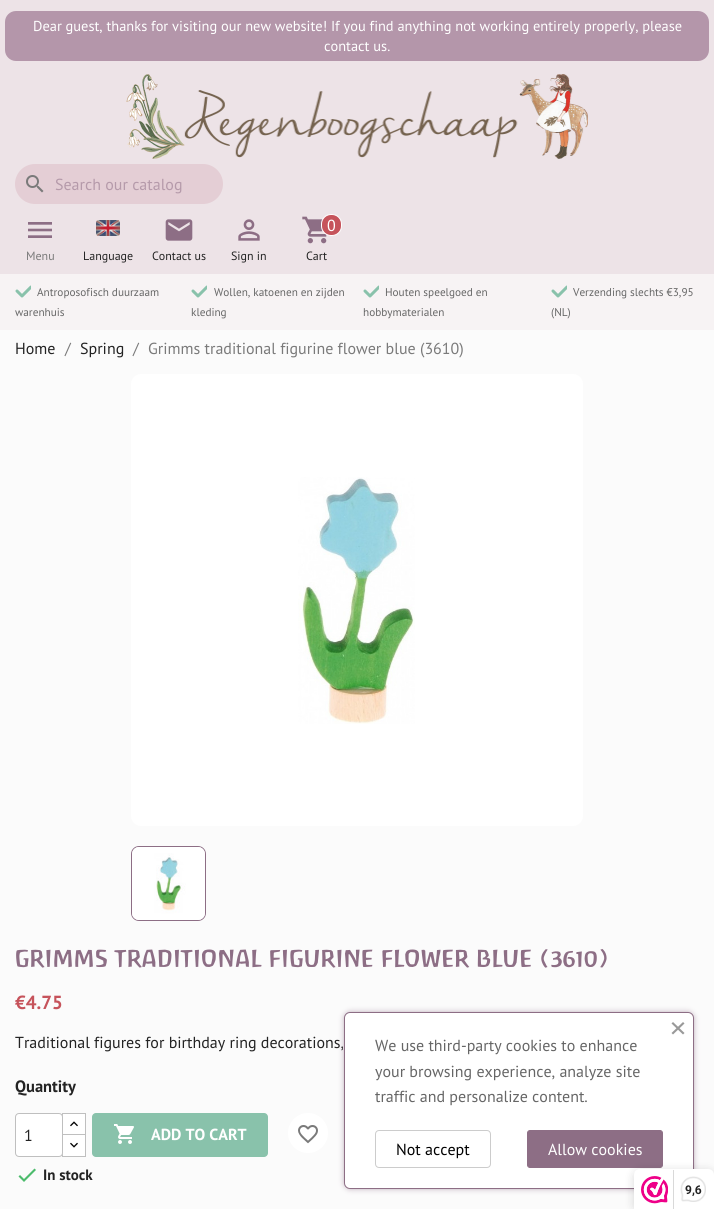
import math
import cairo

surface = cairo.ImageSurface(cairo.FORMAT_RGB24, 714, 1209)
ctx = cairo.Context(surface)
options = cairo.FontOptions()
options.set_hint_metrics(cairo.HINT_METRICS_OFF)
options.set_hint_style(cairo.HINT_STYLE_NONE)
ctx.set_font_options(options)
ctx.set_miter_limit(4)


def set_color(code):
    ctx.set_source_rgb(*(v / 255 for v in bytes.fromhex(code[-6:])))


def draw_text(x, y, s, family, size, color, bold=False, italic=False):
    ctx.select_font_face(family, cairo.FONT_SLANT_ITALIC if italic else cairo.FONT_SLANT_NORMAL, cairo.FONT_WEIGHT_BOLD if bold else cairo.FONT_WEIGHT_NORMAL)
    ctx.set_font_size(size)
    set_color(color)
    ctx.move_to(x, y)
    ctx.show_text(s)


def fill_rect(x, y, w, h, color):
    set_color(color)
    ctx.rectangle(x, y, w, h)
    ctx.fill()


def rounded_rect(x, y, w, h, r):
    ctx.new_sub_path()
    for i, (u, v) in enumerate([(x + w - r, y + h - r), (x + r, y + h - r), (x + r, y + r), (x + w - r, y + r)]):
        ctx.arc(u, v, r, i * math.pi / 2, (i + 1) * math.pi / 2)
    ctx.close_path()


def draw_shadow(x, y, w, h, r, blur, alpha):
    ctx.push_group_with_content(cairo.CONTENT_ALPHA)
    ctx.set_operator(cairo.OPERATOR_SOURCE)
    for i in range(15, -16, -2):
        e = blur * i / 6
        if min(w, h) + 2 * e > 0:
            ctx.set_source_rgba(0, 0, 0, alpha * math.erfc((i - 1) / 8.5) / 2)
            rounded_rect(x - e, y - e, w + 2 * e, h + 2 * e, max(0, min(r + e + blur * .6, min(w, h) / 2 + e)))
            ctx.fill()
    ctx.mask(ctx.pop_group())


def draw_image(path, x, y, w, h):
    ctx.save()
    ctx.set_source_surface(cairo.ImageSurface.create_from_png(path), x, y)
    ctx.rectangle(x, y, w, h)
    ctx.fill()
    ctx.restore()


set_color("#fbfbfb")
ctx.paint()
fill_rect(0, 0, 714, 274, "#ede3e7")
set_color("#b496aa")
rounded_rect(5, 11, 704, 50, 11)
ctx.fill()
draw_text(33, 31, "Dear guest, thanks for visiting our new website! If you find anything not working entirely properly, please", "PT Sans", 14.4, "#ffffff")
draw_text(324, 51, "contact us.", "PT Sans", 14.4, "#ffffff")
draw_image("assets/img1.png", 126, 74, 462, 85)
set_color("#e4ced5")
rounded_rect(15, 164, 208, 40, 20)
ctx.fill()
draw_image("assets/img2.png", 26, 175, 18, 18)
draw_text(55, 190, "Search our catalog", "PT Sans", 16, "#b59aaa")
draw_image("assets/img3.png", 28, 222, 24, 16)
draw_text(26, 260, "Menu", "PT Sans", 12, "#7a7a7a")
draw_image("assets/img4.png", 96, 220, 24, 16)
draw_text(83, 260, "Language", "PT Sans", 12, "#232323")
draw_image("assets/img5.png", 165, 219, 28, 22)
draw_text(152, 260, "Contact us", "PT Sans", 12, "#232323")
draw_image("assets/img6.png", 238, 219, 22, 22)
draw_text(231, 260, "Sign in", "PT Sans", 12, "#232323")
draw_image("assets/img7.png", 302, 216, 25, 28)
set_color("#c6535b")
rounded_rect(321.5, 214.5, 20, 21, 9.5)
ctx.fill_preserve()
set_color("#ffffff")
ctx.set_line_width(1)
ctx.stroke()
draw_text(327, 231, "0", "PT Sans", 16, "#ffffff")
draw_text(306, 260, "Cart", "PT Sans", 12, "#232323")
fill_rect(0, 274, 714, 56, "#f7f3f4")
draw_image("assets/img8.png", 15, 285, 16, 13)
draw_text(37, 296, "Antroposofisch duurzaam", "PT Sans", 11.25, "#666666")
draw_text(15, 316, "warenhuis", "PT Sans", 11.25, "#666666")
draw_image("assets/img8.png", 191, 285, 16, 13)
draw_text(214, 296, "Wollen, katoenen en zijden", "PT Sans", 11.25, "#666666")
draw_text(191, 316, "kleding", "PT Sans", 11.25, "#666666")
draw_image("assets/img8.png", 363, 285, 16, 13)
draw_text(385, 296, "Houten speelgoed en", "PT Sans", 11.25, "#666666")
draw_text(363, 316, "hobbymaterialen", "PT Sans", 11.25, "#666666")
draw_image("assets/img8.png", 551, 285, 16, 13)
draw_text(573, 296, "Verzending slechts €3,95", "PT Sans", 11.25, "#666666")
draw_text(551, 316, "(NL)", "PT Sans", 11.25, "#666666")
draw_text(15, 354, "Home", "PT Sans", 16, "#232323")
draw_text(65, 354, "/", "PT Sans", 16, "#7a7a7a")
draw_text(80, 354, "Spring", "PT Sans", 16, "#232323")
draw_text(133, 354, "/", "PT Sans", 16, "#7a7a7a")
draw_text(148, 354, "Grimms traditional figurine flower blue (3610)", "PT Sans", 16, "#7a7a7a")
set_color("#ffffff")
rounded_rect(131, 374, 452, 452, 10)
ctx.fill()
draw_image("assets/img9.png", 298, 477, 117, 247)
rounded_rect(131.5, 846.5, 74, 74, 7.5)
set_color("#8d6e85")
ctx.stroke()
draw_image("assets/img10.png", 132, 847, 73, 73)
draw_text(15, 967, "GRIMMS TRADITIONAL FIGURINE FLOWER BLUE (3610)", "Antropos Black", 22, "#8d6e85")
draw_text(15, 1009, "€4.75", "PT Sans", 19, "#c6535b", bold=True)
draw_text(15, 1048, "Traditional figures for birthday ring decorations,", "PT Sans", 16, "#232323")
draw_text(15, 1092, "Quantity", "PT Sans", 16.5, "#232323", bold=True)
fill_rect(63, 1114, 22, 20, "#ffffff")
ctx.rectangle(62.5, 1113.5, 23, 22)
set_color("#bfbfbf")
ctx.stroke()
set_color("#ffffff")
ctx.rectangle(62.5, 1134.5, 23, 22)
ctx.fill_preserve()
set_color("#bfbfbf")
ctx.stroke()
set_color("#ffffff")
rounded_rect(15, 1113, 48, 44, 4)
ctx.fill()
rounded_rect(15.5, 1113.5, 47, 43, 3.5)
ctx.set_source_rgba(0, 0, 0, 0.25)
ctx.stroke()
draw_text(24, 1141, "1", "PT Sans", 16, "#232323")
draw_image("assets/img11.png", 70, 1121, 8, 6)
draw_image("assets/img12.png", 70, 1142, 8, 6)
set_color("#89c2ab")
rounded_rect(92, 1113, 176, 44, 4)
ctx.fill()
draw_image("assets/img13.png", 114, 1124, 20, 20)
draw_text(151, 1140, "ADD TO CART", "PT Sans", 16, "#ffffff", bold=True)
ctx.new_path()
ctx.arc(308, 1133, 20, 0, 2 * math.pi)
ctx.fill()
draw_image("assets/img14.png", 298, 1125, 20, 19)
set_color("#4cbb6c")
ctx.new_path()
ctx.move_to(24, 1179)
ctx.line_to(34.5, 1168.5)
ctx.line_to(36, 1170)
ctx.line_to(24, 1182)
ctx.line_to(18.5, 1176.5)
ctx.line_to(20, 1175)
ctx.close_path()
ctx.fill()
draw_text(43, 1180, "In stock", "PT Sans", 15, "#232323", bold=True)
set_color("#8d6e85")
draw_shadow(346, 1014, 346, 173, 4, 3.5, 1)
set_color("#ffffff")
rounded_rect(344.5, 1012.5, 349, 176, 5.5)
ctx.fill_preserve()
set_color("#8d6e85")
ctx.stroke()
set_color("#999999")
ctx.new_path()
ctx.move_to(671.5, 1033)
ctx.line_to(683, 1022)
ctx.line_to(684.5, 1023.5)
ctx.line_to(673, 1034.5)
ctx.close_path()
ctx.fill()
ctx.new_path()
ctx.move_to(673, 1022)
ctx.line_to(684.5, 1033)
ctx.line_to(683, 1034.5)
ctx.line_to(671.5, 1023.5)
ctx.close_path()
ctx.fill()
draw_text(375, 1051, "We use third-party cookies to enhance", "PT Sans", 16, "#666666")
draw_text(375, 1077, "your browsing experience, analyze site", "PT Sans", 16, "#666666")
draw_text(375, 1102, "traffic and personalize content.", "PT Sans", 16, "#666666")
rounded_rect(375.5, 1130.5, 115, 37, 3.5)
set_color("#cccccc")
ctx.stroke()
draw_text(396, 1155, "Not accept", "PT Sans", 16, "#000000")
set_color("#8d6e85")
rounded_rect(527.5, 1130.5, 135, 37, 2.5)
ctx.fill_preserve()
ctx.stroke()
draw_text(548, 1155, "Allow cookies", "PT Sans", 16, "#ffffff")
set_color("#000000")
draw_shadow(634, 1171, 80, 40, 6, 5, 0.15)
set_color("#ffffff")
ctx.new_path()
ctx.move_to(640, 1169)
ctx.line_to(708, 1169)
ctx.curve_to(711.5, 1169, 714, 1171.5, 714, 1175)
ctx.line_to(714, 1209)
ctx.line_to(634, 1209)
ctx.line_to(634, 1175)
ctx.curve_to(634, 1171.5, 636.5, 1169, 640, 1169)
ctx.close_path()
ctx.fill()
draw_image("assets/img15.png", 641, 1176, 27, 28)
fill_rect(673, 1170, 1, 39, "#d9d9d9")
draw_image("assets/img16.png", 680, 1176, 26, 26)
draw_text(685, 1194, "9,6", "Roboto", 12, "#232323", bold=True)
surface.write_to_png("output.png")
